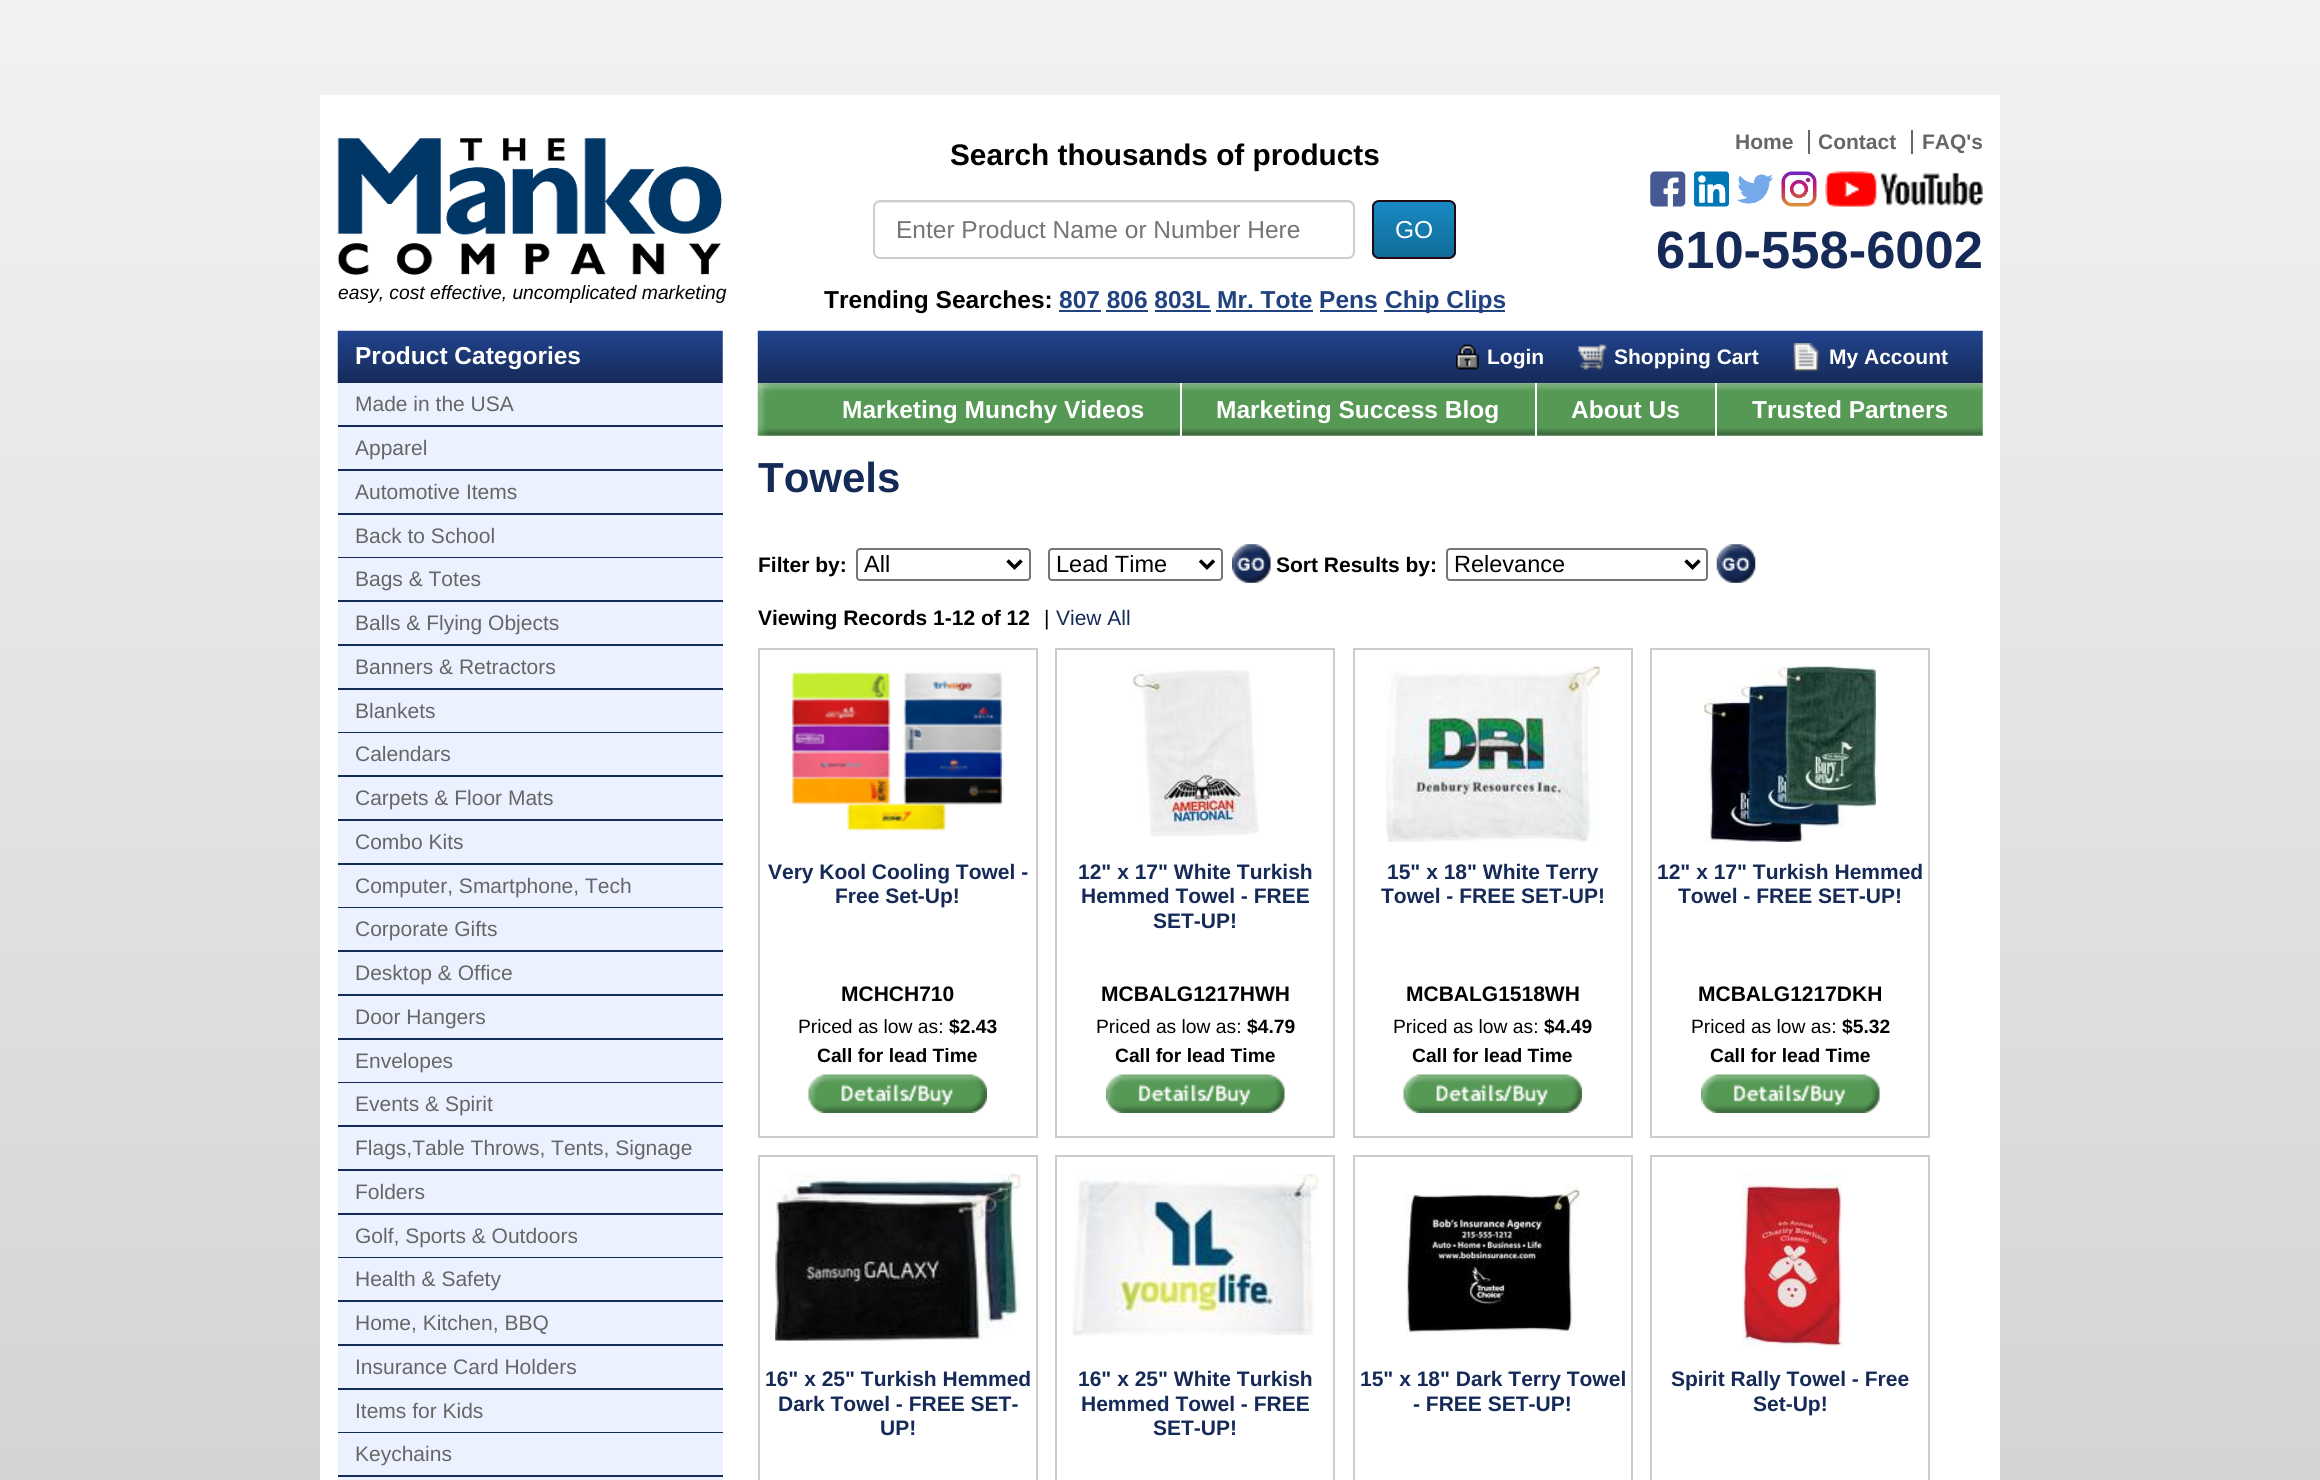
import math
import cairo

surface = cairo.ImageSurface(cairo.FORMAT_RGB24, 2320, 1480)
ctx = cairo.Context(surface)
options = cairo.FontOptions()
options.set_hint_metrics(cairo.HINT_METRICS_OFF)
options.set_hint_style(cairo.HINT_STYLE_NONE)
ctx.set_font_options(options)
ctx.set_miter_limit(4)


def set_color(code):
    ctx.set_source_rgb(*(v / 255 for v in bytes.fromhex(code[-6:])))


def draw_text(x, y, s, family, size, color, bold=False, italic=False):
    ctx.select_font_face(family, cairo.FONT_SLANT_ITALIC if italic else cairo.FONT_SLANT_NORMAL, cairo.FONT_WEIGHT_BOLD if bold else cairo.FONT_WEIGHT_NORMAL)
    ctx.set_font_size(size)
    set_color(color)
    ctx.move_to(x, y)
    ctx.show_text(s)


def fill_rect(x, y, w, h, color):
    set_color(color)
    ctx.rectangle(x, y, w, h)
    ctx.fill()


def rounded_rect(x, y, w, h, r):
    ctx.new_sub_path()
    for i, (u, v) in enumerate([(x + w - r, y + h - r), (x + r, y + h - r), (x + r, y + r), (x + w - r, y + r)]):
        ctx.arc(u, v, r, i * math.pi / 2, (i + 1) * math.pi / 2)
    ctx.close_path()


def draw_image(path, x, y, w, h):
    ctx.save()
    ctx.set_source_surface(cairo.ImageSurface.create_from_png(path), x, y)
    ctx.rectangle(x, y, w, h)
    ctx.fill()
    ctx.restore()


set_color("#ffffff")
ctx.paint()
draw_image("assets/img1.png", 0, 0, 2320, 1480)
fill_rect(320, 95, 1680, 1385, "#ffffff")
draw_image("assets/img2.png", 337, 138, 385, 137)
draw_text(338, 299, "easy, cost effective, uncomplicated marketing", "Liberation Sans", 19.25, "#000000", italic=True)
draw_text(950, 165, "Search thousands of products", "Liberation Sans", 29.75, "#000000", bold=True)
set_color("#ececec")
ctx.new_path()
ctx.move_to(880, 203)
ctx.line_to(1348, 203)
ctx.curve_to(1350, 203, 1353, 205, 1353, 208)
ctx.line_to(1353, 206)
ctx.curve_to(1353, 203, 1351, 201, 1348, 201)
ctx.line_to(880, 201)
ctx.curve_to(877, 201, 875, 203, 875, 206)
ctx.line_to(875, 208)
ctx.curve_to(875, 205, 877, 203, 880, 203)
ctx.close_path()
ctx.fill()
rounded_rect(874, 201, 480, 57, 6)
set_color("#cccccc")
ctx.stroke()
draw_text(896, 238, "Enter Product Name or Number Here", "Liberation Sans", 24.5, "#757575")
ctx.save()
rounded_rect(1372, 200, 84, 59, 7)
ctx.clip()
gradient = cairo.LinearGradient(1414, 201, 1414, 257)
gradient.add_color_stop_rgba(0, 0.094, 0.541, 0.769, 1)
gradient.add_color_stop_rgba(1, 0.067, 0.424, 0.604, 1)
ctx.set_source(gradient)
ctx.rectangle(1372, 201, 84, 56)
ctx.fill()
ctx.restore()
rounded_rect(1373, 201, 82, 57, 6)
set_color("#230912")
ctx.stroke()
draw_text(1395, 238, "GO", "Liberation Sans", 24.5, "#ffffff")
draw_text(824, 308, "Trending Searches:", "Liberation Sans", 24.5, "#000000", bold=True)
draw_text(1059, 308, "807 806 803L Mr. Tote Pens", "Liberation Sans", 24.5, "#204281", bold=True)
fill_rect(1059, 310, 42, 2, "#204281")
fill_rect(1384, 310, 121, 2, "#204281")
draw_text(1385, 308, "Chip Clips", "Liberation Sans", 24.5, "#204281", bold=True)
fill_rect(1106, 310, 42, 2, "#204281")
fill_rect(1155, 310, 56, 2, "#204281")
fill_rect(1216, 310, 97, 2, "#204281")
fill_rect(1320, 310, 57, 2, "#204281")
draw_text(1735, 149, "Home", "Liberation Sans", 21, "#666666", bold=True)
draw_text(1818, 149, "Contact", "Liberation Sans", 21, "#666666", bold=True)
fill_rect(1808, 130, 2, 24, "#666666")
draw_text(1922, 149, "FAQ's", "Liberation Sans", 21, "#666666", bold=True)
fill_rect(1911, 130, 2, 24, "#666666")
draw_image("assets/img3.png", 1650, 171, 36, 36)
draw_image("assets/img4.png", 1694, 171, 35, 36)
draw_image("assets/img5.png", 1737, 174, 36, 30)
draw_image("assets/img6.png", 1781, 171, 36, 36)
draw_image("assets/img7.png", 1825, 171, 158, 36)
draw_text(1656, 268, "610-558-6002", "Liberation Sans", 52.5, "#152a57", bold=True)
draw_image("assets/img8.png", 757, 330, 1226, 54)
draw_image("assets/img9.png", 1456, 344, 23, 26)
draw_text(1487, 364, "Login", "Liberation Sans", 21, "#ffffff", bold=True)
draw_image("assets/img10.png", 1578, 344, 29, 26)
draw_text(1614, 364, "Shopping Cart", "Liberation Sans", 21, "#ffffff", bold=True)
draw_image("assets/img11.png", 1793, 343, 26, 28)
draw_text(1829, 364, "My Account", "Liberation Sans", 21, "#ffffff", bold=True)
draw_image("assets/img12.png", 757, 383, 1226, 53)
draw_text(842, 418, "Marketing Munchy Videos", "Liberation Sans", 24.5, "#ffffff", bold=True)
fill_rect(1180, 383, 2, 53, "#ffffff")
draw_text(1216, 418, "Marketing Success Blog", "Liberation Sans", 24.5, "#ffffff", bold=True)
fill_rect(1535, 383, 2, 53, "#ffffff")
draw_text(1571, 418, "About Us", "Liberation Sans", 24.5, "#ffffff", bold=True)
fill_rect(1715, 383, 2, 53, "#ffffff")
draw_text(1752, 418, "Trusted Partners", "Liberation Sans", 24.5, "#ffffff", bold=True)
draw_image("assets/img13.png", 337, 330, 386, 54)
draw_text(355, 364, "Product Categories", "Liberation Sans", 24.5, "#ffffff", bold=True)
fill_rect(338, 383, 385, 1097, "#ebf1ff")
fill_rect(338, 425, 385, 2, "#142a57")
draw_text(355, 411, "Made in the USA", "Liberation Sans", 21, "#666666")
fill_rect(338, 469, 385, 2, "#142a57")
draw_text(355, 455, "Apparel", "Liberation Sans", 21, "#666666")
fill_rect(338, 513, 385, 2, "#142a57")
draw_text(355, 499, "Automotive Items", "Liberation Sans", 21, "#666666")
fill_rect(338, 557, 385, 1, "#142a57")
draw_text(355, 543, "Back to School", "Liberation Sans", 21, "#666666")
fill_rect(338, 600, 385, 2, "#142a57")
draw_text(355, 586, "Bags & Totes", "Liberation Sans", 21, "#666666")
fill_rect(338, 644, 385, 2, "#142a57")
draw_text(355, 630, "Balls & Flying Objects", "Liberation Sans", 21, "#666666")
fill_rect(338, 688, 385, 2, "#142a57")
draw_text(355, 674, "Banners & Retractors", "Liberation Sans", 21, "#666666")
fill_rect(338, 732, 385, 1, "#142a57")
draw_text(355, 718, "Blankets", "Liberation Sans", 21, "#666666")
fill_rect(338, 775, 385, 2, "#142a57")
draw_text(355, 761, "Calendars", "Liberation Sans", 21, "#666666")
fill_rect(338, 819, 385, 2, "#142a57")
draw_text(355, 805, "Carpets & Floor Mats", "Liberation Sans", 21, "#666666")
fill_rect(338, 863, 385, 2, "#142a57")
draw_text(355, 849, "Combo Kits", "Liberation Sans", 21, "#666666")
fill_rect(338, 907, 385, 1, "#142a57")
draw_text(355, 893, "Computer, Smartphone, Tech", "Liberation Sans", 21, "#666666")
fill_rect(338, 950, 385, 2, "#142a57")
draw_text(355, 936, "Corporate Gifts", "Liberation Sans", 21, "#666666")
fill_rect(338, 994, 385, 2, "#142a57")
draw_text(355, 980, "Desktop & Office", "Liberation Sans", 21, "#666666")
fill_rect(338, 1038, 385, 2, "#142a57")
draw_text(355, 1024, "Door Hangers", "Liberation Sans", 21, "#666666")
fill_rect(338, 1082, 385, 1, "#142a57")
draw_text(355, 1068, "Envelopes", "Liberation Sans", 21, "#666666")
fill_rect(338, 1125, 385, 2, "#142a57")
draw_text(355, 1111, "Events & Spirit", "Liberation Sans", 21, "#666666")
fill_rect(338, 1169, 385, 2, "#142a57")
draw_text(355, 1155, "Flags,Table Throws, Tents, Signage", "Liberation Sans", 21, "#666666")
fill_rect(338, 1213, 385, 2, "#142a57")
draw_text(355, 1199, "Folders", "Liberation Sans", 21, "#666666")
fill_rect(338, 1257, 385, 1, "#142a57")
draw_text(355, 1243, "Golf, Sports & Outdoors", "Liberation Sans", 21, "#666666")
fill_rect(338, 1300, 385, 2, "#142a57")
draw_text(355, 1286, "Health & Safety", "Liberation Sans", 21, "#666666")
fill_rect(338, 1344, 385, 2, "#142a57")
draw_text(355, 1330, "Home, Kitchen, BBQ", "Liberation Sans", 21, "#666666")
fill_rect(338, 1388, 385, 2, "#142a57")
draw_text(355, 1374, "Insurance Card Holders", "Liberation Sans", 21, "#666666")
fill_rect(338, 1432, 385, 1, "#142a57")
draw_text(355, 1418, "Items for Kids", "Liberation Sans", 21, "#666666")
fill_rect(338, 1475, 385, 2, "#142a57")
draw_text(355, 1461, "Keychains", "Liberation Sans", 21, "#666666")
draw_text(758, 492, "Towels", "Liberation Sans", 42, "#152a57", bold=True)
draw_text(758, 572, "Filter by:", "Liberation Sans", 21, "#000000", bold=True)
rounded_rect(857, 549, 173, 31, 3)
set_color("#767676")
ctx.stroke()
ctx.new_path()
ctx.move_to(1007.5, 560.5)
ctx.line_to(1014.5, 567.5)
ctx.line_to(1021.5, 560.5)
set_color("#000000")
ctx.set_line_width(3.5)
ctx.stroke()
draw_text(864, 572, "All", "Liberation Sans", 23.5, "#000000")
rounded_rect(1049, 549, 173, 31, 3)
set_color("#767676")
ctx.set_line_width(2)
ctx.stroke()
ctx.new_path()
ctx.move_to(1200, 560.5)
ctx.line_to(1207, 567.5)
ctx.line_to(1214, 560.5)
set_color("#000000")
ctx.set_line_width(3.5)
ctx.stroke()
draw_text(1056, 572, "Lead Time", "Liberation Sans", 23.5, "#000000")
draw_image("assets/img14.png", 1232, 544, 39, 39)
draw_text(1276, 572, "Sort Results by:", "Liberation Sans", 21, "#000000", bold=True)
rounded_rect(1447, 549, 260, 31, 3)
set_color("#767676")
ctx.set_line_width(2)
ctx.stroke()
ctx.new_path()
ctx.move_to(1685.5, 560.5)
ctx.line_to(1692.5, 567.5)
ctx.line_to(1699.5, 560.5)
set_color("#000000")
ctx.set_line_width(3.5)
ctx.stroke()
draw_text(1454, 572, "Relevance", "Liberation Sans", 23.5, "#000000")
draw_image("assets/img15.png", 1716, 544, 40, 39)
draw_text(758, 625, "Viewing Records 1-12 of 12", "Liberation Sans", 21, "#000000", bold=True)
draw_text(1044, 625, "|", "Liberation Sans", 21, "#000000")
draw_text(1056, 625, "View All", "Liberation Sans", 21, "#152a57")
ctx.rectangle(759, 649, 278, 488)
set_color("#cccccc")
ctx.set_line_width(2)
ctx.stroke()
draw_image("assets/img16.png", 791, 671, 213, 160)
draw_text(768, 879, "Very Kool Cooling Towel -", "Liberation Sans", 21, "#152a57", bold=True)
draw_text(835, 903, "Free Set-Up!", "Liberation Sans", 21, "#152a57", bold=True)
draw_text(841, 1001, "MCHCH710", "Liberation Sans", 21, "#000000", bold=True)
draw_text(798, 1033, "Priced as low as:", "Liberation Sans", 19.25, "#000000")
draw_text(949, 1033, "$2.43", "Liberation Sans", 19.25, "#000000", bold=True)
draw_text(817, 1062, "Call for lead Time", "Liberation Sans", 19.25, "#000000", bold=True)
draw_image("assets/img17.png", 808, 1074, 179, 39)
ctx.rectangle(1056, 649, 278, 488)
set_color("#cccccc")
ctx.stroke()
draw_image("assets/img18.png", 1130, 667, 129, 170)
draw_text(1078, 879, "12\" x 17\" White Turkish", "Liberation Sans", 21, "#152a57", bold=True)
draw_text(1081, 903, "Hemmed Towel - FREE", "Liberation Sans", 21, "#152a57", bold=True)
draw_text(1153, 928, "SET-UP!", "Liberation Sans", 21, "#152a57", bold=True)
draw_text(1101, 1001, "MCBALG1217HWH", "Liberation Sans", 21, "#000000", bold=True)
draw_text(1096, 1033, "Priced as low as:", "Liberation Sans", 19.25, "#000000")
draw_text(1247, 1033, "$4.79", "Liberation Sans", 19.25, "#000000", bold=True)
draw_text(1115, 1062, "Call for lead Time", "Liberation Sans", 19.25, "#000000", bold=True)
draw_image("assets/img19.png", 1106, 1074, 179, 39)
ctx.rectangle(1354, 649, 278, 488)
set_color("#cccccc")
ctx.stroke()
draw_image("assets/img20.png", 1386, 666, 214, 176)
draw_text(1387, 879, "15\" x 18\" White Terry", "Liberation Sans", 21, "#152a57", bold=True)
draw_text(1381, 903, "Towel - FREE SET-UP!", "Liberation Sans", 21, "#152a57", bold=True)
draw_text(1406, 1001, "MCBALG1518WH", "Liberation Sans", 21, "#000000", bold=True)
draw_text(1393, 1033, "Priced as low as:", "Liberation Sans", 19.25, "#000000")
draw_text(1544, 1033, "$4.49", "Liberation Sans", 19.25, "#000000", bold=True)
draw_text(1412, 1062, "Call for lead Time", "Liberation Sans", 19.25, "#000000", bold=True)
draw_image("assets/img21.png", 1403, 1074, 179, 39)
ctx.rectangle(1651, 649, 278, 488)
set_color("#cccccc")
ctx.stroke()
draw_image("assets/img22.png", 1704, 666, 172, 176)
draw_text(1657, 879, "12\" x 17\" Turkish Hemmed", "Liberation Sans", 21, "#152a57", bold=True)
draw_text(1678, 903, "Towel - FREE SET-UP!", "Liberation Sans", 21, "#152a57", bold=True)
draw_text(1698, 1001, "MCBALG1217DKH", "Liberation Sans", 21, "#000000", bold=True)
draw_text(1691, 1033, "Priced as low as:", "Liberation Sans", 19.25, "#000000")
draw_text(1842, 1033, "$5.32", "Liberation Sans", 19.25, "#000000", bold=True)
draw_text(1710, 1062, "Call for lead Time", "Liberation Sans", 19.25, "#000000", bold=True)
draw_image("assets/img19.png", 1701, 1074, 179, 39)
ctx.rectangle(759, 1156, 278, 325)
set_color("#cccccc")
ctx.stroke()
draw_image("assets/img23.png", 775, 1174, 246, 167)
draw_text(765, 1386, "16\" x 25\" Turkish Hemmed", "Liberation Sans", 21, "#152a57", bold=True)
draw_text(778, 1411, "Dark Towel - FREE SET-", "Liberation Sans", 21, "#152a57", bold=True)
draw_text(880, 1435, "UP!", "Liberation Sans", 21, "#152a57", bold=True)
ctx.rectangle(1056, 1156, 278, 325)
set_color("#cccccc")
ctx.stroke()
draw_image("assets/img24.png", 1072, 1174, 246, 162)
draw_text(1078, 1386, "16\" x 25\" White Turkish", "Liberation Sans", 21, "#152a57", bold=True)
draw_text(1081, 1411, "Hemmed Towel - FREE", "Liberation Sans", 21, "#152a57", bold=True)
draw_text(1153, 1435, "SET-UP!", "Liberation Sans", 21, "#152a57", bold=True)
ctx.rectangle(1354, 1156, 278, 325)
set_color("#cccccc")
ctx.stroke()
draw_image("assets/img25.png", 1405, 1184, 175, 150)
draw_text(1360, 1386, "15\" x 18\" Dark Terry Towel", "Liberation Sans", 21, "#152a57", bold=True)
draw_text(1413, 1411, "- FREE SET-UP!", "Liberation Sans", 21, "#152a57", bold=True)
ctx.rectangle(1651, 1156, 278, 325)
set_color("#cccccc")
ctx.stroke()
draw_image("assets/img26.png", 1742, 1174, 101, 175)
draw_text(1671, 1386, "Spirit Rally Towel - Free", "Liberation Sans", 21, "#152a57", bold=True)
draw_text(1753, 1411, "Set-Up!", "Liberation Sans", 21, "#152a57", bold=True)
surface.write_to_png("output.png")
